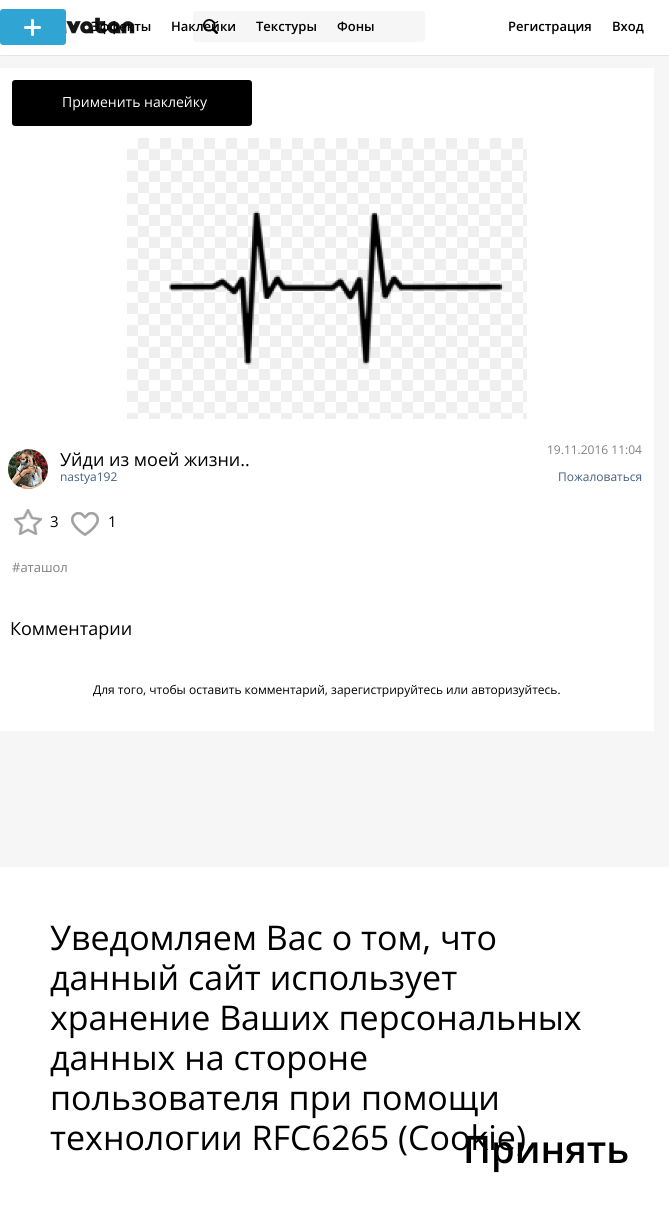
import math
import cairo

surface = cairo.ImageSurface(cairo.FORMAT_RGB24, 669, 1207)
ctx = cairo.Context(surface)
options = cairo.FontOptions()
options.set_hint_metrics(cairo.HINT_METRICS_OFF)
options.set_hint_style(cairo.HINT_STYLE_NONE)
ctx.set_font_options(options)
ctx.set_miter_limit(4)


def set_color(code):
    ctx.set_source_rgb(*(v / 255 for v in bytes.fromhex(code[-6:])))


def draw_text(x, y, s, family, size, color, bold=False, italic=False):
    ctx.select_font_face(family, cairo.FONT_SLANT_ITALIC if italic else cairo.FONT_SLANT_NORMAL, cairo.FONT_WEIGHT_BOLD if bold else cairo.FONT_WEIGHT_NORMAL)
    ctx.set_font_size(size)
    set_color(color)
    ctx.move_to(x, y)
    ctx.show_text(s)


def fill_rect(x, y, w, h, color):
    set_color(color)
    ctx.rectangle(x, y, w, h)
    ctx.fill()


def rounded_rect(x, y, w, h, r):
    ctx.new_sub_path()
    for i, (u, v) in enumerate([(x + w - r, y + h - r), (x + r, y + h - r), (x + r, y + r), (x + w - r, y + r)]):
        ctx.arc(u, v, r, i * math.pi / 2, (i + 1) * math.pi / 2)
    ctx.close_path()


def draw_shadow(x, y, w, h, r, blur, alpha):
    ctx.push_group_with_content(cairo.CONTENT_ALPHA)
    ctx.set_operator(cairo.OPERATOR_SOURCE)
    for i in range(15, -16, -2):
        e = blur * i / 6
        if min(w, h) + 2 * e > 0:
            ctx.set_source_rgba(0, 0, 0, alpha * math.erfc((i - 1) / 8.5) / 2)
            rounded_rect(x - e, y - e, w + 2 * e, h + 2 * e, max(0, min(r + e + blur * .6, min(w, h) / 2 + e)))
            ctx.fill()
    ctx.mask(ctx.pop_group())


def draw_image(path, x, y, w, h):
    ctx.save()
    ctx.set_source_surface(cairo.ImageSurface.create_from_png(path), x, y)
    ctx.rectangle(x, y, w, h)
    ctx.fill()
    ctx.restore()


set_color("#f6f6f6")
ctx.paint()
set_color("#000000")
draw_shadow(0, 0, 669, 55, 0, 0.5, 0.3)
fill_rect(0, 0, 669, 55, "#ffffff")
draw_image("assets/img1.png", 66, 13, 69, 29)
set_color("#f6f6f6")
rounded_rect(193, 11, 232, 31, 3)
ctx.fill()
draw_image("assets/img2.png", 203, 19, 15, 15)
set_color("#30a5d4")
rounded_rect(0, 9, 66, 36, 3)
ctx.fill()
draw_image("assets/img3.png", 24, 19, 17, 17)
draw_text(91, 31, "Эффекты", "Open Sans SemiBold", 13, "#000000")
draw_text(171, 31, "Наклейки", "Open Sans SemiBold", 13, "#000000")
draw_text(256, 31, "Текстуры", "Open Sans SemiBold", 13, "#000000")
draw_text(337, 31, "Фоны", "Open Sans SemiBold", 13, "#000000")
draw_text(508, 31, "Регистрация", "Open Sans SemiBold", 13, "#000000")
draw_text(612, 31, "Вход", "Open Sans SemiBold", 13, "#000000")
fill_rect(0, 68, 654, 663, "#ffffff")
set_color("#000000")
rounded_rect(12, 80, 240, 46, 3)
ctx.fill()
draw_text(62, 107, "Применить наклейку", "Open Sans", 14, "#ffffff")
draw_image("assets/img4.png", 127, 138, 400, 281)
draw_image("assets/img5.png", 169, 211, 335, 154)
draw_image("assets/img6.png", 8, 449, 40, 40)
draw_text(60, 466, "Уйди из моей жизни..", "Open Sans", 18, "#000000")
draw_text(547, 454, "19.11.2016 11:04", "Open Sans", 12, "#818181")
draw_text(60, 481, "nastya192", "Open Sans", 12, "#445e7f")
draw_text(558, 481, "Пожаловаться", "Open Sans", 12, "#445e7f")
draw_image("assets/img7.png", 14, 509, 28, 26)
draw_text(50, 527, "3", "Open Sans", 15, "#000000")
draw_image("assets/img8.png", 71, 512, 28, 24)
draw_text(108, 527, "1", "Open Sans", 15, "#000000")
draw_text(12, 572, "#аташол", "Open Sans", 13, "#818181")
draw_text(10, 635, "Комментарии", "Open Sans", 18, "#000000")
draw_text(93, 694, "Для того, чтобы оставить комментарий, зарегистрируйтесь или авторизуйтесь.", "Open Sans", 12, "#000000")
fill_rect(0, 867, 669, 340, "#ffffff")
draw_text(50, 950, "Уведомляем Вас о том, что", "Open Sans", 34, "#000000")
draw_text(50, 990, "данный сайт использует", "Open Sans", 34, "#000000")
draw_text(50, 1030, "хранение Ваших персональных", "Open Sans", 34, "#000000")
draw_text(50, 1070, "данных на стороне", "Open Sans", 34, "#000000")
draw_text(50, 1110, "пользователя при помощи", "Open Sans", 34, "#000000")
draw_text(50, 1150, "технологии RFC6265 (Cookie).", "Open Sans", 34, "#000000")
draw_text(463, 1163, "Принять", "Open Sans SemiBold", 38, "#000000")
surface.write_to_png("output.png")
